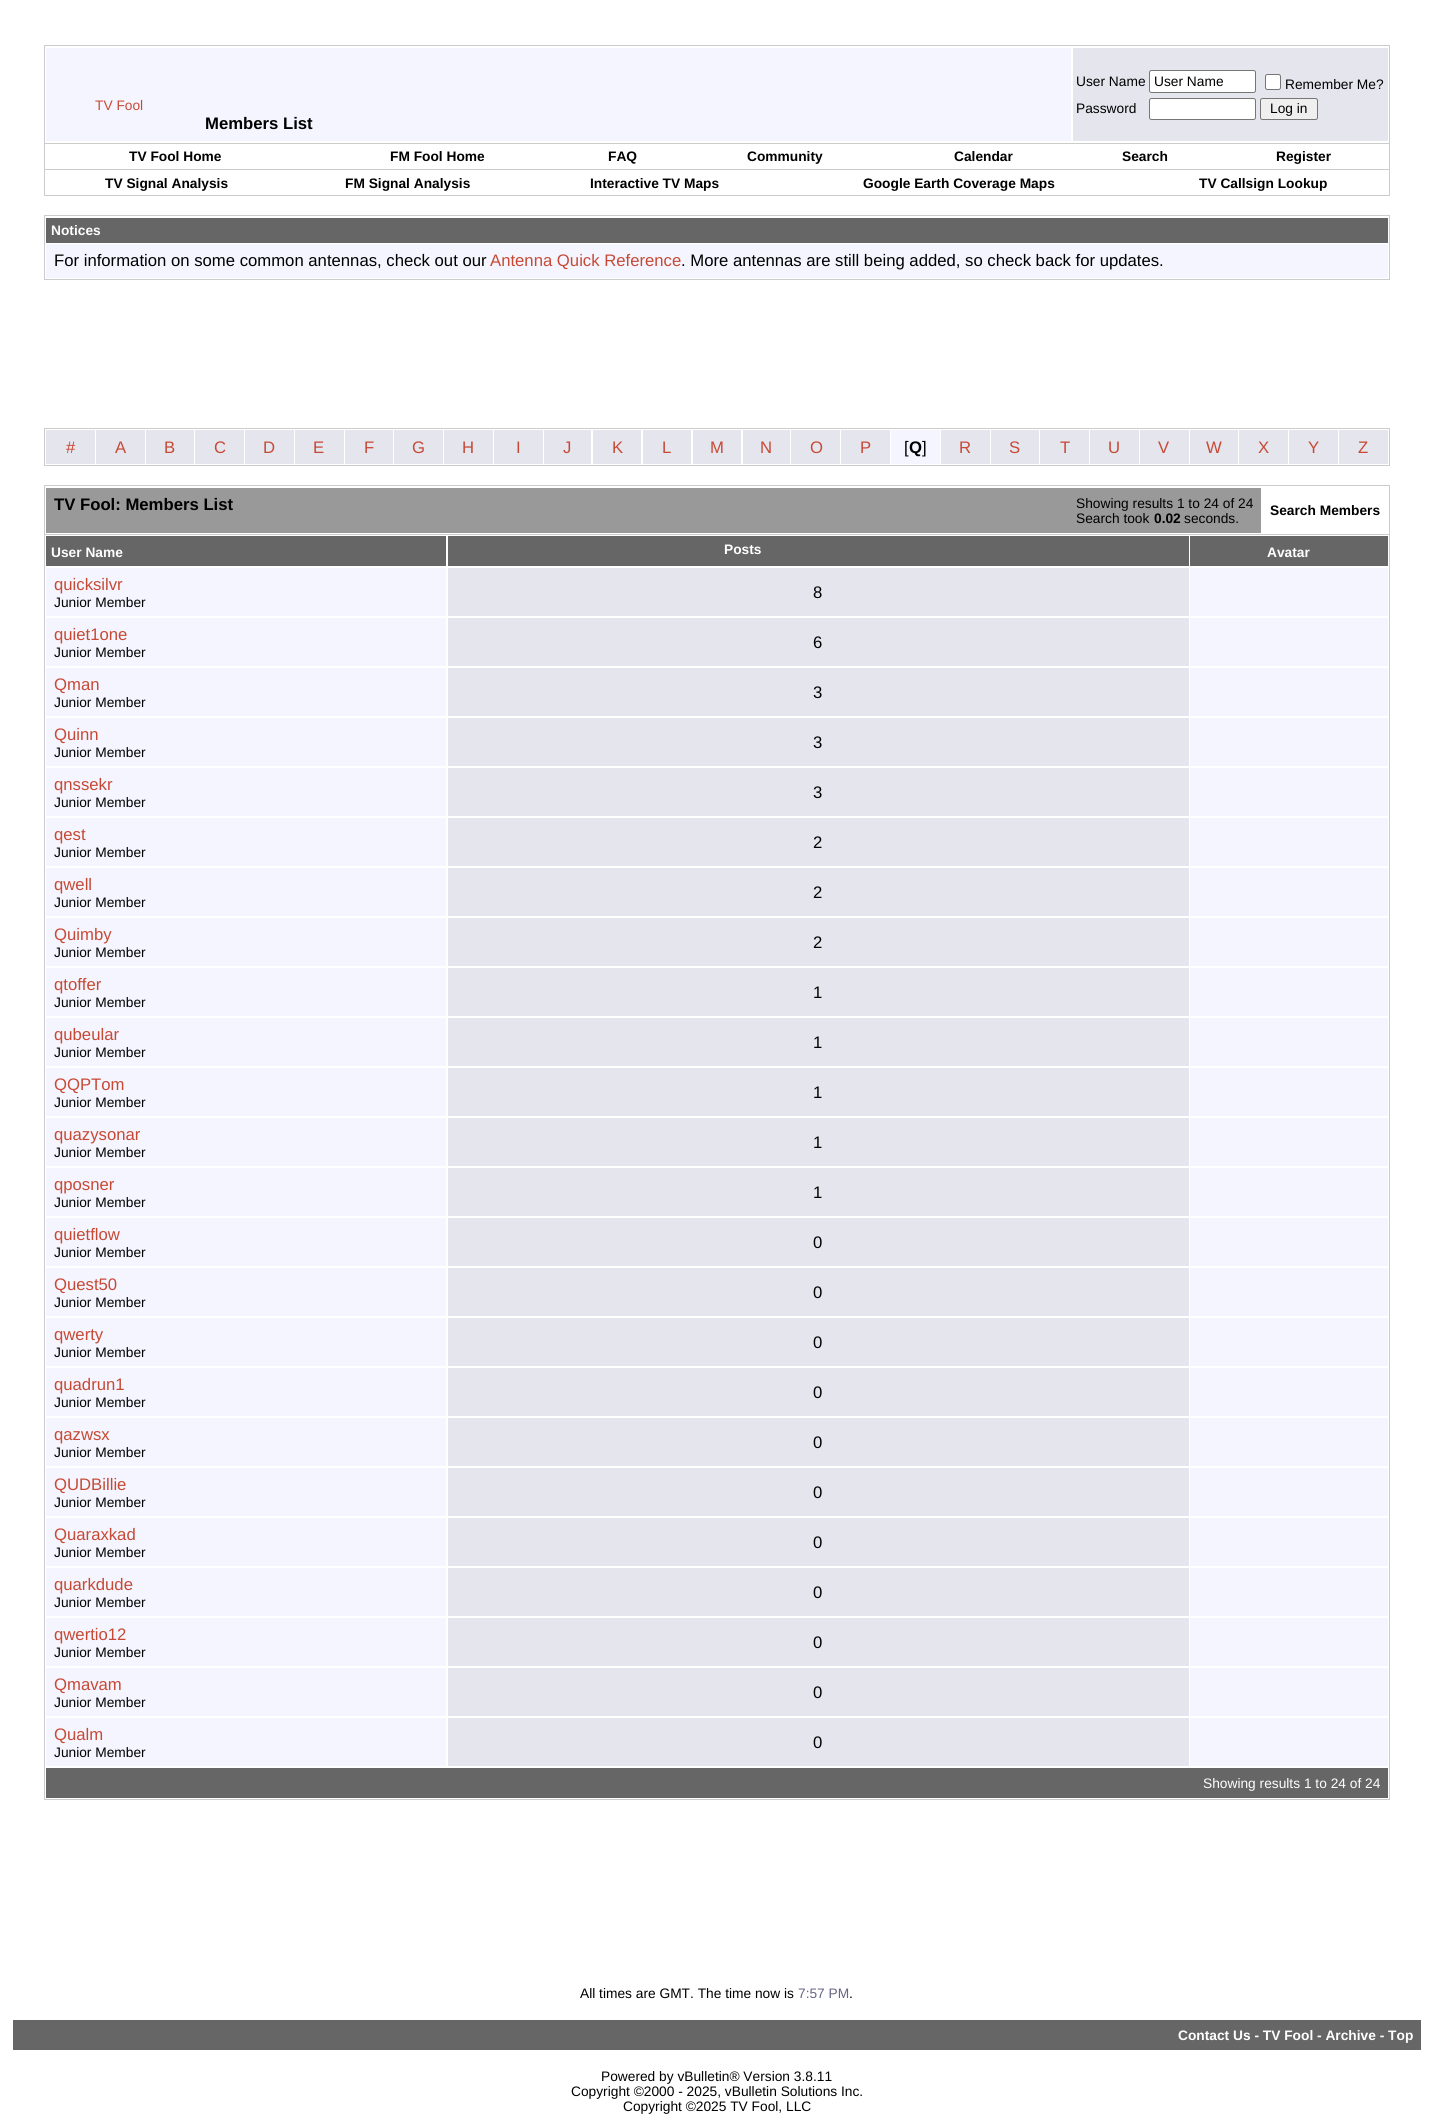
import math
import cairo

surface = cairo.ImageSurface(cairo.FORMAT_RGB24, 1433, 2127)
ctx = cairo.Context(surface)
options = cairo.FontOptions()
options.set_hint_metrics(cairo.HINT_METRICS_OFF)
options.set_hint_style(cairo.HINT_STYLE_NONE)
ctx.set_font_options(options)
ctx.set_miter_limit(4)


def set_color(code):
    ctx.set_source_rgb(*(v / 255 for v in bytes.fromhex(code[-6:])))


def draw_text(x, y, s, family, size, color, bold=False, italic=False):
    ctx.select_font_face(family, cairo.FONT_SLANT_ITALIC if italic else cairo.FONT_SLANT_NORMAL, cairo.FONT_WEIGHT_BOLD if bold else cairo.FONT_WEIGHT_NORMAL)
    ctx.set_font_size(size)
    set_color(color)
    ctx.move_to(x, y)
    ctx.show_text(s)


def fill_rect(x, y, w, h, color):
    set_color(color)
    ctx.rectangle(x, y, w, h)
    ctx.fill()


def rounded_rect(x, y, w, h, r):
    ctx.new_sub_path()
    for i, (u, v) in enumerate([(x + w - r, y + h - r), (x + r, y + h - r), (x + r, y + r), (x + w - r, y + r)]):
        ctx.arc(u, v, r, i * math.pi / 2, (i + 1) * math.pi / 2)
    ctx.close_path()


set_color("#ffffff")
ctx.paint()
ctx.rectangle(44.5, 45.5, 1345, 98)
set_color("#cccccc")
ctx.set_line_width(1)
ctx.stroke()
fill_rect(46, 48, 1025, 93, "#f5f5ff")
draw_text(95, 110, "TV Fool", "Liberation Sans", 13.75, "#c64934")
draw_text(205, 129, "Members List", "Liberation Sans", 16.7, "#000000", bold=True)
fill_rect(1073, 48, 315, 93, "#e5e5ee")
draw_text(1076, 86, "User Name", "Liberation Sans", 13.75, "#000000")
set_color("#ffffff")
rounded_rect(1149.5, 70.5, 106, 22, 2)
ctx.fill_preserve()
set_color("#767676")
ctx.stroke()
draw_text(1154, 86, "User Name", "Liberation Sans", 13.75, "#000000")
set_color("#ffffff")
rounded_rect(1265.5, 74.5, 15, 15, 2)
ctx.fill_preserve()
set_color("#767676")
ctx.stroke()
draw_text(1285, 89, "Remember Me?", "Liberation Sans", 13.75, "#000000")
draw_text(1076, 113, "Password", "Liberation Sans", 13.75, "#000000")
set_color("#ffffff")
rounded_rect(1149.5, 98.5, 106, 21, 2)
ctx.fill_preserve()
set_color("#767676")
ctx.stroke()
set_color("#efefef")
rounded_rect(1260.5, 98.5, 57, 21, 2)
ctx.fill_preserve()
set_color("#767676")
ctx.stroke()
draw_text(1270, 113, "Log in", "Liberation Sans", 13.75, "#000000")
fill_rect(1389, 144, 1, 52, "#cccccc")
fill_rect(44, 169, 1346, 1, "#cccccc")
fill_rect(44, 144, 1, 26, "#cccccc")
draw_text(129, 161, "TV Fool Home", "Liberation Sans", 13.75, "#000000", bold=True)
draw_text(390, 161, "FM Fool Home", "Liberation Sans", 13.75, "#000000", bold=True)
draw_text(608, 161, "FAQ", "Liberation Sans", 13.75, "#000000", bold=True)
draw_text(747, 161, "Community", "Liberation Sans", 13.75, "#000000", bold=True)
draw_text(954, 161, "Calendar", "Liberation Sans", 13.75, "#000000", bold=True)
draw_text(1122, 161, "Search", "Liberation Sans", 13.75, "#000000", bold=True)
draw_text(1276, 161, "Register", "Liberation Sans", 13.75, "#000000", bold=True)
fill_rect(44, 195, 1346, 1, "#cccccc")
fill_rect(44, 170, 1, 26, "#cccccc")
draw_text(105, 188, "TV Signal Analysis", "Liberation Sans", 13.75, "#000000", bold=True)
draw_text(345, 188, "FM Signal Analysis", "Liberation Sans", 13.75, "#000000", bold=True)
draw_text(590, 188, "Interactive TV Maps", "Liberation Sans", 13.75, "#000000", bold=True)
draw_text(863, 188, "Google Earth Coverage Maps", "Liberation Sans", 13.75, "#000000", bold=True)
draw_text(1199, 188, "TV Callsign Lookup", "Liberation Sans", 13.75, "#000000", bold=True)
ctx.rectangle(44.5, 215.5, 1345, 64)
set_color("#cccccc")
ctx.stroke()
fill_rect(46, 218, 1342, 25, "#666666")
draw_text(51, 235, "Notices", "Liberation Sans", 13.75, "#ffffff", bold=True)
fill_rect(46, 244, 1342, 34, "#f5f5ff")
draw_text(54, 266, "For information on some common antennas, check out our", "Liberation Sans", 16.7, "#000000")
draw_text(490, 266, "Antenna Quick Reference", "Liberation Sans", 16.7, "#c64934")
draw_text(681, 266, ". More antennas are still being added, so check back for updates.", "Liberation Sans", 16.7, "#000000")
ctx.rectangle(44.5, 428.5, 1345, 37)
set_color("#cccccc")
ctx.stroke()
fill_rect(46, 430, 49, 34, "#e5e5ee")
draw_text(66, 453, "#", "Liberation Sans", 16.7, "#c64934")
fill_rect(96, 430, 49, 34, "#e5e5ee")
draw_text(115, 453, "A", "Liberation Sans", 16.7, "#c64934")
fill_rect(146, 430, 48, 34, "#e5e5ee")
draw_text(164, 453, "B", "Liberation Sans", 16.7, "#c64934")
fill_rect(195, 430, 49, 34, "#e5e5ee")
draw_text(214, 453, "C", "Liberation Sans", 16.7, "#c64934")
fill_rect(245, 430, 49, 34, "#e5e5ee")
draw_text(263, 453, "D", "Liberation Sans", 16.7, "#c64934")
fill_rect(295, 430, 49, 34, "#e5e5ee")
draw_text(313, 453, "E", "Liberation Sans", 16.7, "#c64934")
fill_rect(345, 430, 48, 34, "#e5e5ee")
draw_text(364, 453, "F", "Liberation Sans", 16.7, "#c64934")
fill_rect(394, 430, 49, 34, "#e5e5ee")
draw_text(412, 453, "G", "Liberation Sans", 16.7, "#c64934")
fill_rect(444, 430, 49, 34, "#e5e5ee")
draw_text(462, 453, "H", "Liberation Sans", 16.7, "#c64934")
fill_rect(494, 430, 49, 34, "#e5e5ee")
draw_text(516, 453, "I", "Liberation Sans", 16.7, "#c64934")
fill_rect(544, 430, 47, 34, "#e5e5ee")
draw_text(563, 453, "J", "Liberation Sans", 16.7, "#c64934")
fill_rect(593, 430, 48, 34, "#e5e5ee")
draw_text(612, 453, "K", "Liberation Sans", 16.7, "#c64934")
fill_rect(643, 430, 48, 34, "#e5e5ee")
draw_text(662, 453, "L", "Liberation Sans", 16.7, "#c64934")
fill_rect(693, 430, 48, 34, "#e5e5ee")
draw_text(710, 453, "M", "Liberation Sans", 16.7, "#c64934")
fill_rect(743, 430, 47, 34, "#e5e5ee")
draw_text(760, 453, "N", "Liberation Sans", 16.7, "#c64934")
fill_rect(791, 430, 49, 34, "#e5e5ee")
draw_text(810, 453, "O", "Liberation Sans", 16.7, "#c64934")
fill_rect(841, 430, 49, 34, "#e5e5ee")
draw_text(860, 453, "P", "Liberation Sans", 16.7, "#c64934")
fill_rect(891, 430, 49, 34, "#f5f5ff")
draw_text(904, 453, "[", "Liberation Sans", 16.7, "#000000")
draw_text(909, 453, "Q", "Liberation Sans", 16.7, "#000000", bold=True)
draw_text(922, 453, "]", "Liberation Sans", 16.7, "#000000")
fill_rect(941, 430, 49, 34, "#e5e5ee")
draw_text(959, 453, "R", "Liberation Sans", 16.7, "#c64934")
fill_rect(991, 430, 48, 34, "#e5e5ee")
draw_text(1009, 453, "S", "Liberation Sans", 16.7, "#c64934")
fill_rect(1040, 430, 49, 34, "#e5e5ee")
draw_text(1060, 453, "T", "Liberation Sans", 16.7, "#c64934")
fill_rect(1090, 430, 49, 34, "#e5e5ee")
draw_text(1108, 453, "U", "Liberation Sans", 16.7, "#c64934")
fill_rect(1140, 430, 49, 34, "#e5e5ee")
draw_text(1158, 453, "V", "Liberation Sans", 16.7, "#c64934")
fill_rect(1190, 430, 48, 34, "#e5e5ee")
draw_text(1206, 453, "W", "Liberation Sans", 16.7, "#c64934")
fill_rect(1239, 430, 49, 34, "#e5e5ee")
draw_text(1258, 453, "X", "Liberation Sans", 16.7, "#c64934")
fill_rect(1289, 430, 49, 34, "#e5e5ee")
draw_text(1308, 453, "Y", "Liberation Sans", 16.7, "#c64934")
fill_rect(1339, 430, 49, 34, "#e5e5ee")
draw_text(1358, 453, "Z", "Liberation Sans", 16.7, "#c64934")
fill_rect(44, 485, 1346, 1, "#cccccc")
fill_rect(1389, 485, 1, 49, "#cccccc")
fill_rect(44, 485, 1, 49, "#cccccc")
fill_rect(46, 488, 1215, 45, "#999999")
draw_text(54, 510, "TV Fool: Members List", "Liberation Sans", 16.7, "#000000", bold=True)
draw_text(1076, 508, "Showing results 1 to 24 of 24", "Liberation Sans", 13.75, "#000000")
draw_text(1076, 523, "Search took", "Liberation Sans", 13.75, "#000000")
draw_text(1154, 523, "0.02", "Liberation Sans", 13.75, "#000000", bold=True)
draw_text(1184, 523, "seconds.", "Liberation Sans", 13.75, "#000000")
draw_text(1270, 515, "Search Members", "Liberation Sans", 13.75, "#000000", bold=True)
ctx.rectangle(44.5, 534.5, 1345, 1265)
set_color("#cccccc")
ctx.stroke()
fill_rect(46, 536, 400, 30, "#666666")
draw_text(51, 557, "User Name", "Liberation Sans", 13.75, "#ffffff", bold=True)
fill_rect(448, 536, 741, 30, "#666666")
draw_text(724, 554, "Posts", "Liberation Sans", 13.75, "#ffffff", bold=True)
fill_rect(1190, 536, 198, 30, "#666666")
draw_text(1267, 557, "Avatar", "Liberation Sans", 13.75, "#ffffff", bold=True)
fill_rect(46, 568, 400, 48, "#f5f5ff")
draw_text(54, 590, "quicksilvr", "Liberation Sans", 16.7, "#c64934")
draw_text(54, 607, "Junior Member", "Liberation Sans", 13.75, "#000000")
fill_rect(448, 568, 741, 48, "#e5e5ee")
draw_text(813, 598, "8", "Liberation Sans", 16.7, "#000000")
fill_rect(1190, 568, 198, 48, "#f5f5ff")
fill_rect(46, 618, 400, 48, "#f5f5ff")
draw_text(54, 640, "quiet1one", "Liberation Sans", 16.7, "#c64934")
draw_text(54, 657, "Junior Member", "Liberation Sans", 13.75, "#000000")
fill_rect(448, 618, 741, 48, "#e5e5ee")
draw_text(813, 648, "6", "Liberation Sans", 16.7, "#000000")
fill_rect(1190, 618, 198, 48, "#f5f5ff")
fill_rect(46, 668, 400, 48, "#f5f5ff")
draw_text(54, 690, "Qman", "Liberation Sans", 16.7, "#c64934")
draw_text(54, 707, "Junior Member", "Liberation Sans", 13.75, "#000000")
fill_rect(448, 668, 741, 48, "#e5e5ee")
draw_text(813, 698, "3", "Liberation Sans", 16.7, "#000000")
fill_rect(1190, 668, 198, 48, "#f5f5ff")
fill_rect(46, 718, 400, 48, "#f5f5ff")
draw_text(54, 740, "Quinn", "Liberation Sans", 16.7, "#c64934")
draw_text(54, 757, "Junior Member", "Liberation Sans", 13.75, "#000000")
fill_rect(448, 718, 741, 48, "#e5e5ee")
draw_text(813, 748, "3", "Liberation Sans", 16.7, "#000000")
fill_rect(1190, 718, 198, 48, "#f5f5ff")
fill_rect(46, 768, 400, 48, "#f5f5ff")
draw_text(54, 790, "qnssekr", "Liberation Sans", 16.7, "#c64934")
draw_text(54, 807, "Junior Member", "Liberation Sans", 13.75, "#000000")
fill_rect(448, 768, 741, 48, "#e5e5ee")
draw_text(813, 798, "3", "Liberation Sans", 16.7, "#000000")
fill_rect(1190, 768, 198, 48, "#f5f5ff")
fill_rect(46, 818, 400, 48, "#f5f5ff")
draw_text(54, 840, "qest", "Liberation Sans", 16.7, "#c64934")
draw_text(54, 857, "Junior Member", "Liberation Sans", 13.75, "#000000")
fill_rect(448, 818, 741, 48, "#e5e5ee")
draw_text(813, 848, "2", "Liberation Sans", 16.7, "#000000")
fill_rect(1190, 818, 198, 48, "#f5f5ff")
fill_rect(46, 868, 400, 48, "#f5f5ff")
draw_text(54, 890, "qwell", "Liberation Sans", 16.7, "#c64934")
draw_text(54, 907, "Junior Member", "Liberation Sans", 13.75, "#000000")
fill_rect(448, 868, 741, 48, "#e5e5ee")
draw_text(813, 898, "2", "Liberation Sans", 16.7, "#000000")
fill_rect(1190, 868, 198, 48, "#f5f5ff")
fill_rect(46, 918, 400, 48, "#f5f5ff")
draw_text(54, 940, "Quimby", "Liberation Sans", 16.7, "#c64934")
draw_text(54, 957, "Junior Member", "Liberation Sans", 13.75, "#000000")
fill_rect(448, 918, 741, 48, "#e5e5ee")
draw_text(813, 948, "2", "Liberation Sans", 16.7, "#000000")
fill_rect(1190, 918, 198, 48, "#f5f5ff")
fill_rect(46, 968, 400, 48, "#f5f5ff")
draw_text(54, 990, "qtoffer", "Liberation Sans", 16.7, "#c64934")
draw_text(54, 1007, "Junior Member", "Liberation Sans", 13.75, "#000000")
fill_rect(448, 968, 741, 48, "#e5e5ee")
draw_text(813, 998, "1", "Liberation Sans", 16.7, "#000000")
fill_rect(1190, 968, 198, 48, "#f5f5ff")
fill_rect(46, 1018, 400, 48, "#f5f5ff")
draw_text(54, 1040, "qubeular", "Liberation Sans", 16.7, "#c64934")
draw_text(54, 1057, "Junior Member", "Liberation Sans", 13.75, "#000000")
fill_rect(448, 1018, 741, 48, "#e5e5ee")
draw_text(813, 1048, "1", "Liberation Sans", 16.7, "#000000")
fill_rect(1190, 1018, 198, 48, "#f5f5ff")
fill_rect(46, 1068, 400, 48, "#f5f5ff")
draw_text(54, 1090, "QQPTom", "Liberation Sans", 16.7, "#c64934")
draw_text(54, 1107, "Junior Member", "Liberation Sans", 13.75, "#000000")
fill_rect(448, 1068, 741, 48, "#e5e5ee")
draw_text(813, 1098, "1", "Liberation Sans", 16.7, "#000000")
fill_rect(1190, 1068, 198, 48, "#f5f5ff")
fill_rect(46, 1118, 400, 48, "#f5f5ff")
draw_text(54, 1140, "quazysonar", "Liberation Sans", 16.7, "#c64934")
draw_text(54, 1157, "Junior Member", "Liberation Sans", 13.75, "#000000")
fill_rect(448, 1118, 741, 48, "#e5e5ee")
draw_text(813, 1148, "1", "Liberation Sans", 16.7, "#000000")
fill_rect(1190, 1118, 198, 48, "#f5f5ff")
fill_rect(46, 1168, 400, 48, "#f5f5ff")
draw_text(54, 1190, "qposner", "Liberation Sans", 16.7, "#c64934")
draw_text(54, 1207, "Junior Member", "Liberation Sans", 13.75, "#000000")
fill_rect(448, 1168, 741, 48, "#e5e5ee")
draw_text(813, 1198, "1", "Liberation Sans", 16.7, "#000000")
fill_rect(1190, 1168, 198, 48, "#f5f5ff")
fill_rect(46, 1218, 400, 48, "#f5f5ff")
draw_text(54, 1240, "quietflow", "Liberation Sans", 16.7, "#c64934")
draw_text(54, 1257, "Junior Member", "Liberation Sans", 13.75, "#000000")
fill_rect(448, 1218, 741, 48, "#e5e5ee")
draw_text(813, 1248, "0", "Liberation Sans", 16.7, "#000000")
fill_rect(1190, 1218, 198, 48, "#f5f5ff")
fill_rect(46, 1268, 400, 48, "#f5f5ff")
draw_text(54, 1290, "Quest50", "Liberation Sans", 16.7, "#c64934")
draw_text(54, 1307, "Junior Member", "Liberation Sans", 13.75, "#000000")
fill_rect(448, 1268, 741, 48, "#e5e5ee")
draw_text(813, 1298, "0", "Liberation Sans", 16.7, "#000000")
fill_rect(1190, 1268, 198, 48, "#f5f5ff")
fill_rect(46, 1318, 400, 48, "#f5f5ff")
draw_text(54, 1340, "qwerty", "Liberation Sans", 16.7, "#c64934")
draw_text(54, 1357, "Junior Member", "Liberation Sans", 13.75, "#000000")
fill_rect(448, 1318, 741, 48, "#e5e5ee")
draw_text(813, 1348, "0", "Liberation Sans", 16.7, "#000000")
fill_rect(1190, 1318, 198, 48, "#f5f5ff")
fill_rect(46, 1368, 400, 48, "#f5f5ff")
draw_text(54, 1390, "quadrun1", "Liberation Sans", 16.7, "#c64934")
draw_text(54, 1407, "Junior Member", "Liberation Sans", 13.75, "#000000")
fill_rect(448, 1368, 741, 48, "#e5e5ee")
draw_text(813, 1398, "0", "Liberation Sans", 16.7, "#000000")
fill_rect(1190, 1368, 198, 48, "#f5f5ff")
fill_rect(46, 1418, 400, 48, "#f5f5ff")
draw_text(54, 1440, "qazwsx", "Liberation Sans", 16.7, "#c64934")
draw_text(54, 1457, "Junior Member", "Liberation Sans", 13.75, "#000000")
fill_rect(448, 1418, 741, 48, "#e5e5ee")
draw_text(813, 1448, "0", "Liberation Sans", 16.7, "#000000")
fill_rect(1190, 1418, 198, 48, "#f5f5ff")
fill_rect(46, 1468, 400, 48, "#f5f5ff")
draw_text(54, 1490, "QUDBillie", "Liberation Sans", 16.7, "#c64934")
draw_text(54, 1507, "Junior Member", "Liberation Sans", 13.75, "#000000")
fill_rect(448, 1468, 741, 48, "#e5e5ee")
draw_text(813, 1498, "0", "Liberation Sans", 16.7, "#000000")
fill_rect(1190, 1468, 198, 48, "#f5f5ff")
fill_rect(46, 1518, 400, 48, "#f5f5ff")
draw_text(54, 1540, "Quaraxkad", "Liberation Sans", 16.7, "#c64934")
draw_text(54, 1557, "Junior Member", "Liberation Sans", 13.75, "#000000")
fill_rect(448, 1518, 741, 48, "#e5e5ee")
draw_text(813, 1548, "0", "Liberation Sans", 16.7, "#000000")
fill_rect(1190, 1518, 198, 48, "#f5f5ff")
fill_rect(46, 1568, 400, 48, "#f5f5ff")
draw_text(54, 1590, "quarkdude", "Liberation Sans", 16.7, "#c64934")
draw_text(54, 1607, "Junior Member", "Liberation Sans", 13.75, "#000000")
fill_rect(448, 1568, 741, 48, "#e5e5ee")
draw_text(813, 1598, "0", "Liberation Sans", 16.7, "#000000")
fill_rect(1190, 1568, 198, 48, "#f5f5ff")
fill_rect(46, 1618, 400, 48, "#f5f5ff")
draw_text(54, 1640, "qwertio12", "Liberation Sans", 16.7, "#c64934")
draw_text(54, 1657, "Junior Member", "Liberation Sans", 13.75, "#000000")
fill_rect(448, 1618, 741, 48, "#e5e5ee")
draw_text(813, 1648, "0", "Liberation Sans", 16.7, "#000000")
fill_rect(1190, 1618, 198, 48, "#f5f5ff")
fill_rect(46, 1668, 400, 48, "#f5f5ff")
draw_text(54, 1690, "Qmavam", "Liberation Sans", 16.7, "#c64934")
draw_text(54, 1707, "Junior Member", "Liberation Sans", 13.75, "#000000")
fill_rect(448, 1668, 741, 48, "#e5e5ee")
draw_text(813, 1698, "0", "Liberation Sans", 16.7, "#000000")
fill_rect(1190, 1668, 198, 48, "#f5f5ff")
fill_rect(46, 1718, 400, 48, "#f5f5ff")
draw_text(54, 1740, "Qualm", "Liberation Sans", 16.7, "#c64934")
draw_text(54, 1757, "Junior Member", "Liberation Sans", 13.75, "#000000")
fill_rect(448, 1718, 741, 48, "#e5e5ee")
draw_text(813, 1748, "0", "Liberation Sans", 16.7, "#000000")
fill_rect(1190, 1718, 198, 48, "#f5f5ff")
fill_rect(46, 1768, 1342, 30, "#666666")
draw_text(1203, 1788, "Showing results 1 to 24 of 24", "Liberation Sans", 13.75, "#ffffff")
draw_text(580, 1998, "All times are GMT. The time now is", "Liberation Sans", 13.75, "#000000")
draw_text(798, 1998, "7:57 PM", "Liberation Sans", 13.75, "#666686")
draw_text(849, 1998, ".", "Liberation Sans", 13.75, "#000000")
fill_rect(13, 2020, 1408, 30, "#666666")
draw_text(1178, 2040, "Contact Us - TV Fool - Archive - Top", "Liberation Sans", 13.75, "#ffffff", bold=True)
draw_text(601, 2081, "Powered by vBulletin® Version 3.8.11", "Liberation Sans", 13.75, "#000000")
draw_text(571, 2096, "Copyright ©2000 - 2025, vBulletin Solutions Inc.", "Liberation Sans", 13.75, "#000000")
draw_text(623, 2111, "Copyright ©2025 TV Fool, LLC", "Liberation Sans", 13.75, "#000000")
surface.write_to_png("output.png")
